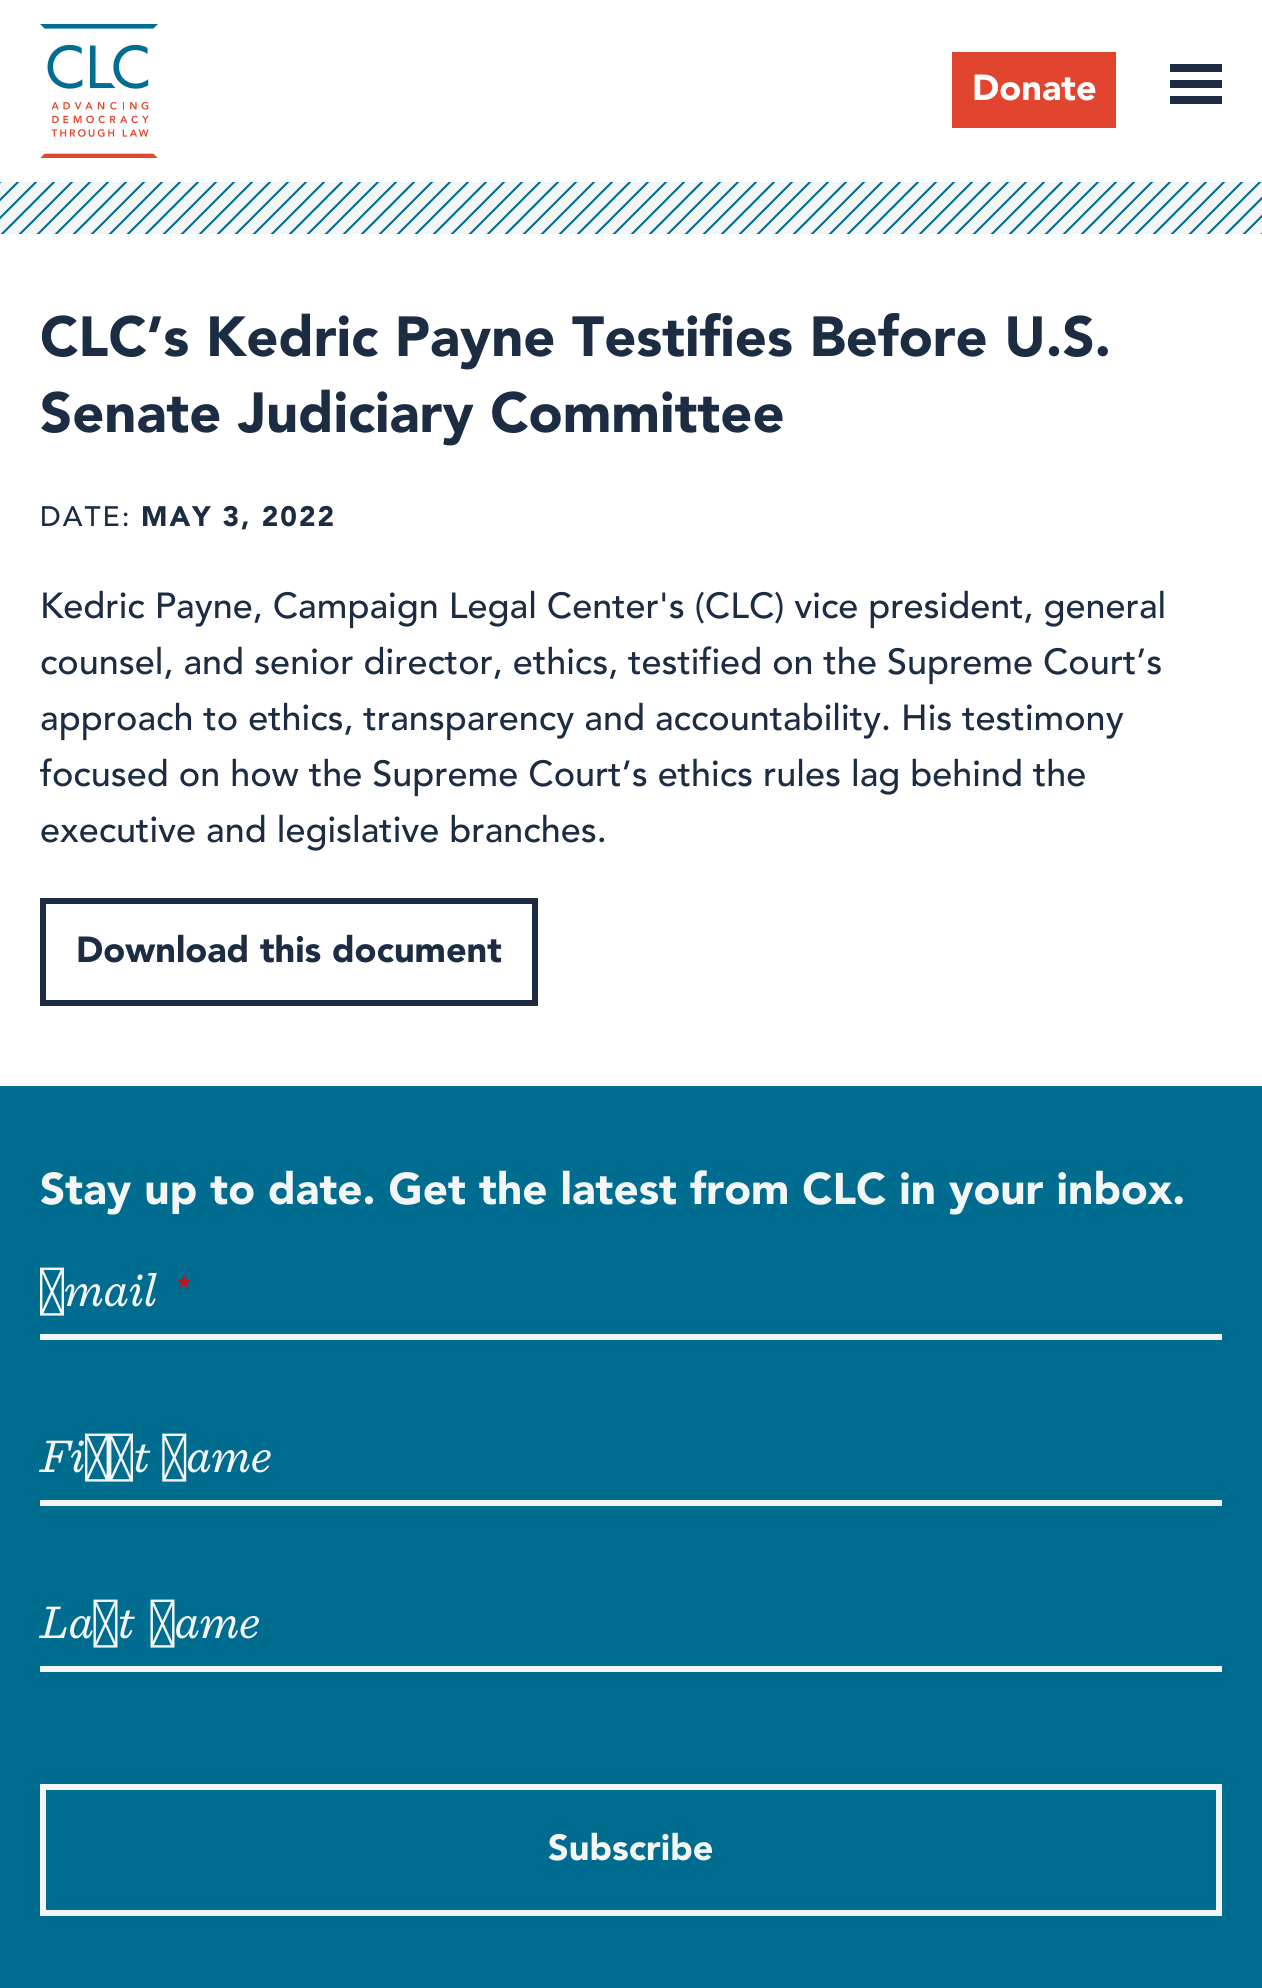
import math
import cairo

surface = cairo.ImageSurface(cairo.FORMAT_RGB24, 1262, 1988)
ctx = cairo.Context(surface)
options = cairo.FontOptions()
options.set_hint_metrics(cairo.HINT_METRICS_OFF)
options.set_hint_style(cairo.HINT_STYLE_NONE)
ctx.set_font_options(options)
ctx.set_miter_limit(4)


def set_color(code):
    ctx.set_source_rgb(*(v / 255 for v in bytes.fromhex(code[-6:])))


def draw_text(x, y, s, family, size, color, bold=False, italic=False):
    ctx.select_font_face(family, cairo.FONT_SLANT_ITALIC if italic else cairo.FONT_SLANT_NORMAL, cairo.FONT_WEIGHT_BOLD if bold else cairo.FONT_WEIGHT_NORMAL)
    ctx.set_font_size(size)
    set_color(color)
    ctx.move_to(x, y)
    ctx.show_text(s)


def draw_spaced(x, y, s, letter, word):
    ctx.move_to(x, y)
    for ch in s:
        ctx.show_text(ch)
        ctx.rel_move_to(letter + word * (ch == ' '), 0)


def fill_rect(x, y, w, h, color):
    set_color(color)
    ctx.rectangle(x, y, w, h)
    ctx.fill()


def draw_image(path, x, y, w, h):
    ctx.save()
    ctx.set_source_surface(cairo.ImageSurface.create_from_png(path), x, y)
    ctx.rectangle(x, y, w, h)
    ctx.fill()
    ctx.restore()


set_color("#ffffff")
ctx.paint()
draw_image("assets/img1.png", 40, 24, 118, 134)
fill_rect(1170, 80, 52, 8, "#1c2d43")
fill_rect(1170, 64, 52, 8, "#1c2d43")
fill_rect(1170, 96, 52, 8, "#1c2d43")
fill_rect(952, 52, 164, 76, "#e2452f")
draw_text(972, 100, "Donate", "Avenir", 36, "#ffffff")
fill_rect(0, 182, 1262, 52, "#f4f5f5")
draw_image("assets/img2.png", 0, 182, 1262, 52)
draw_text(40, 356, "CLC’s Kedric Payne Testifies Before U.S.", "Avenir", 56, "#1c2d43")
draw_text(40, 432, "Senate Judiciary Committee", "Avenir", 56, "#1c2d43")
ctx.select_font_face("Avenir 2")
ctx.set_font_size(28)
draw_spaced(40, 526, "DATE:", 2, 0)
ctx.select_font_face("Avenir")
draw_spaced(141, 526, "MAY 3, 2022", 2, 0)
draw_text(40, 618, "Kedric Payne, Campaign Legal Center's (CLC) vice president, general", "Avenir 2", 36, "#1c2d43")
draw_text(40, 674, "counsel, and senior director, ethics, testified on the Supreme Court’s", "Avenir 2", 36, "#1c2d43")
draw_text(40, 730, "approach to ethics, transparency and accountability. His testimony", "Avenir 2", 36, "#1c2d43")
draw_text(40, 786, "focused on how the Supreme Court’s ethics rules lag behind the", "Avenir 2", 36, "#1c2d43")
draw_text(40, 842, "executive and legislative branches.", "Avenir 2", 36, "#1c2d43")
ctx.rectangle(43, 901, 492, 102)
ctx.set_line_width(6)
ctx.stroke()
draw_text(76, 962, "Download this document", "Avenir", 36, "#1c2d43")
fill_rect(0, 1086, 1262, 902, "#006c90")
draw_text(40, 1204, "Stay up to date. Get the latest from CLC in your inbox.", "Avenir", 44, "#f4f5f5")
draw_text(40, 1306, "Email", "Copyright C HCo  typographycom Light", 48, "#f4f5f5", italic=True)
draw_image("assets/img3.png", 178, 1276, 12, 12)
fill_rect(40, 1334, 1182, 6, "#f4f5f5")
draw_spaced(40, 1472, "First Name", 0, 4)
fill_rect(40, 1500, 1182, 6, "#f4f5f5")
draw_spaced(40, 1638, "Last Name", 0, 8)
fill_rect(40, 1666, 1182, 6, "#f4f5f5")
ctx.rectangle(43, 1787, 1176, 126)
ctx.stroke()
draw_text(548, 1860, "Subscribe", "Avenir", 36, "#f4f5f5")
surface.write_to_png("output.png")
